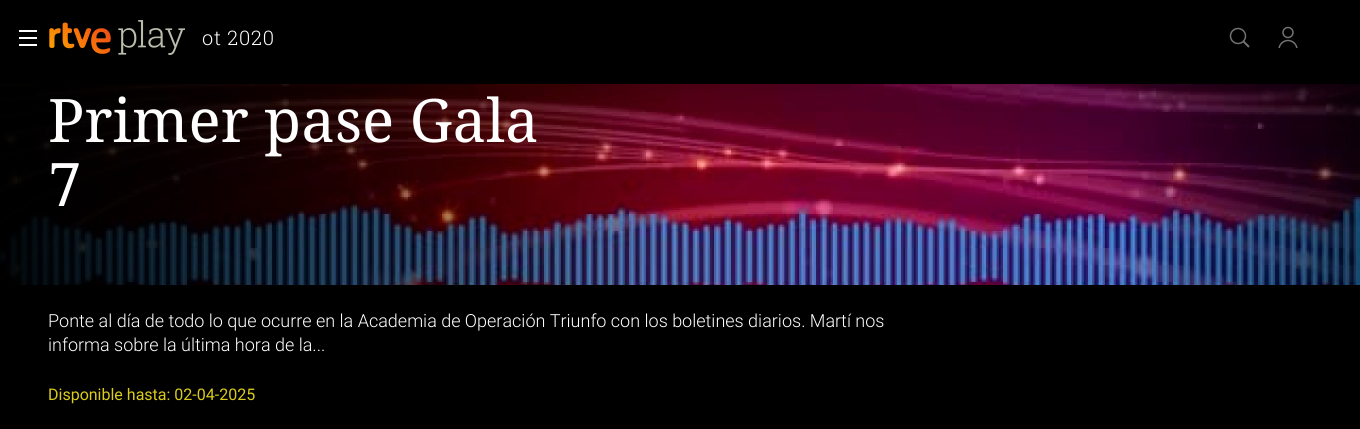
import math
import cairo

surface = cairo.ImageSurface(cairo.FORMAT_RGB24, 1360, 429)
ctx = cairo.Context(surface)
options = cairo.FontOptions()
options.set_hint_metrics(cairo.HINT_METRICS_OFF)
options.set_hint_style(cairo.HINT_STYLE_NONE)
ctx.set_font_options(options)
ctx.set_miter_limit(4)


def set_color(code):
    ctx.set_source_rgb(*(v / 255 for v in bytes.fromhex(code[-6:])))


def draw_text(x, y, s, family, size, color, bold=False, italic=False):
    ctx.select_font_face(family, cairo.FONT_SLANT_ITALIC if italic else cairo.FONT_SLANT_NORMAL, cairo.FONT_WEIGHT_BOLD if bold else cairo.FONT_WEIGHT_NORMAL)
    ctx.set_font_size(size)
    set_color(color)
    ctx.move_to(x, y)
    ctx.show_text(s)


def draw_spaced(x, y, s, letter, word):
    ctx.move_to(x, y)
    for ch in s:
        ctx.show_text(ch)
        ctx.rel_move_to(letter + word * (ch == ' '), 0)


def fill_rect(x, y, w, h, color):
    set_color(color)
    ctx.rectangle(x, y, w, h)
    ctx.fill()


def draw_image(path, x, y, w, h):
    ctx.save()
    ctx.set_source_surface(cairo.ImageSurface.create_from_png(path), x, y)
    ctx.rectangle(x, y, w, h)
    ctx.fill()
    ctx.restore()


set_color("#ffffff")
ctx.paint()
fill_rect(0, 0, 1360, 84, "#000000")
fill_rect(19, 30, 18, 2, "#ffffff")
fill_rect(19, 37, 18, 2, "#ffffff")
fill_rect(19, 44, 18, 2, "#ffffff")
draw_image("assets/img1.png", 49, 22, 62, 32)
draw_image("assets/img2.png", 118, 20, 67, 35)
ctx.select_font_face("Roboto Slab Light")
ctx.set_font_size(20)
draw_spaced(202, 45, "ot 2020", 0.75, 0)
ctx.new_path()
ctx.arc(1238, 36, 7.5, 0, 2 * math.pi)
set_color("#727272")
ctx.set_line_width(1.5)
ctx.stroke()
ctx.new_path()
ctx.move_to(1243.5, 41.5)
ctx.line_to(1249, 47)
ctx.set_line_width(2)
ctx.stroke()
draw_image("assets/img3.png", 1278, 26, 20, 22)
draw_image("assets/img4.png", 0, 84, 1360, 201)
draw_text(48, 142, "Primer pase Gala", "Noto Serif", 60, "#ffffff")
draw_text(48, 206, "7", "Noto Serif", 60, "#ffffff")
fill_rect(0, 285, 1360, 144, "#000000")
draw_text(48, 327, "Ponte al día de todo lo que ocurre en la Academia de Operación Triunfo con los boletines diarios. Martí nos", "Roboto Light", 18, "#ffffff")
draw_text(48, 351, "informa sobre la última hora de la...", "Roboto Light", 18, "#ffffff")
draw_text(48, 400, "Disponible hasta: 02-04-2025", "Roboto", 16, "#dbcb1b")
surface.write_to_png("output.png")
